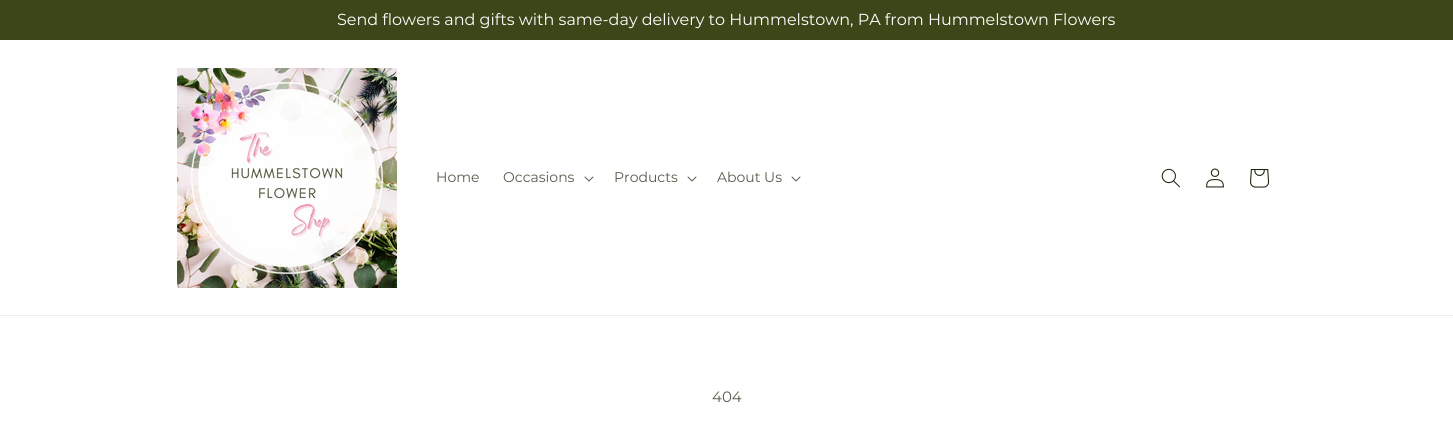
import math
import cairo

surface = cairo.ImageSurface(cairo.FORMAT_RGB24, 1453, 437)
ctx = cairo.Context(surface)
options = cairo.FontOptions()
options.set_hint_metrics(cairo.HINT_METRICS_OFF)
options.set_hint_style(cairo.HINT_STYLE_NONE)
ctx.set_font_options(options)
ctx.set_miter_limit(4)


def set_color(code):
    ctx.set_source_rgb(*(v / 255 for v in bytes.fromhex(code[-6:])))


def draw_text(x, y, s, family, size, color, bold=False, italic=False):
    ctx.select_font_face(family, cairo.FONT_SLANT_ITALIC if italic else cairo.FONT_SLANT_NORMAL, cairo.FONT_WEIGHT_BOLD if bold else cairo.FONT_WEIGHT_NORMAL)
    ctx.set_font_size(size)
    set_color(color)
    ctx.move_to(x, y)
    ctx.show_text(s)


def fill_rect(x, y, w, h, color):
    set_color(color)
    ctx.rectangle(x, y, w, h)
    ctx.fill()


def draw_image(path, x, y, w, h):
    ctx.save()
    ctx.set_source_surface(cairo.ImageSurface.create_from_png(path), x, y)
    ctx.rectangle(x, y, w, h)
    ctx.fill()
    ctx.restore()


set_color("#ffffff")
ctx.paint()
fill_rect(0, 0, 1453, 39, "#3c4618")
fill_rect(0, 39, 1453, 1, "#3a4417")
draw_text(337, 25, "Send flowers and gifts with same-day delivery to Hummelstown, PA from Hummelstown Flowers", "Montserrat", 16, "#ffffff")
fill_rect(0, 315, 1453, 1, "#edeeec")
draw_image("assets/img1.png", 177, 68, 220, 220)
draw_text(436, 182, "Home", "Montserrat", 14, "#565e4b")
draw_text(503, 182, "Occasions", "Montserrat", 14, "#565e4b")
draw_image("assets/img2.png", 584, 176, 10, 6)
draw_text(614, 182, "Products", "Montserrat", 14, "#565e4b")
draw_image("assets/img2.png", 687, 176, 10, 6)
draw_text(717, 182, "About Us", "Montserrat", 14, "#565e4b")
draw_image("assets/img2.png", 791, 176, 10, 6)
draw_image("assets/img3.png", 1161, 168, 19, 20)
draw_image("assets/img4.png", 1206, 168, 18, 20)
draw_image("assets/img5.png", 1250, 169, 20, 19)
draw_text(712, 402, "404", "Montserrat", 15, "#565e4b")
surface.write_to_png("output.png")
